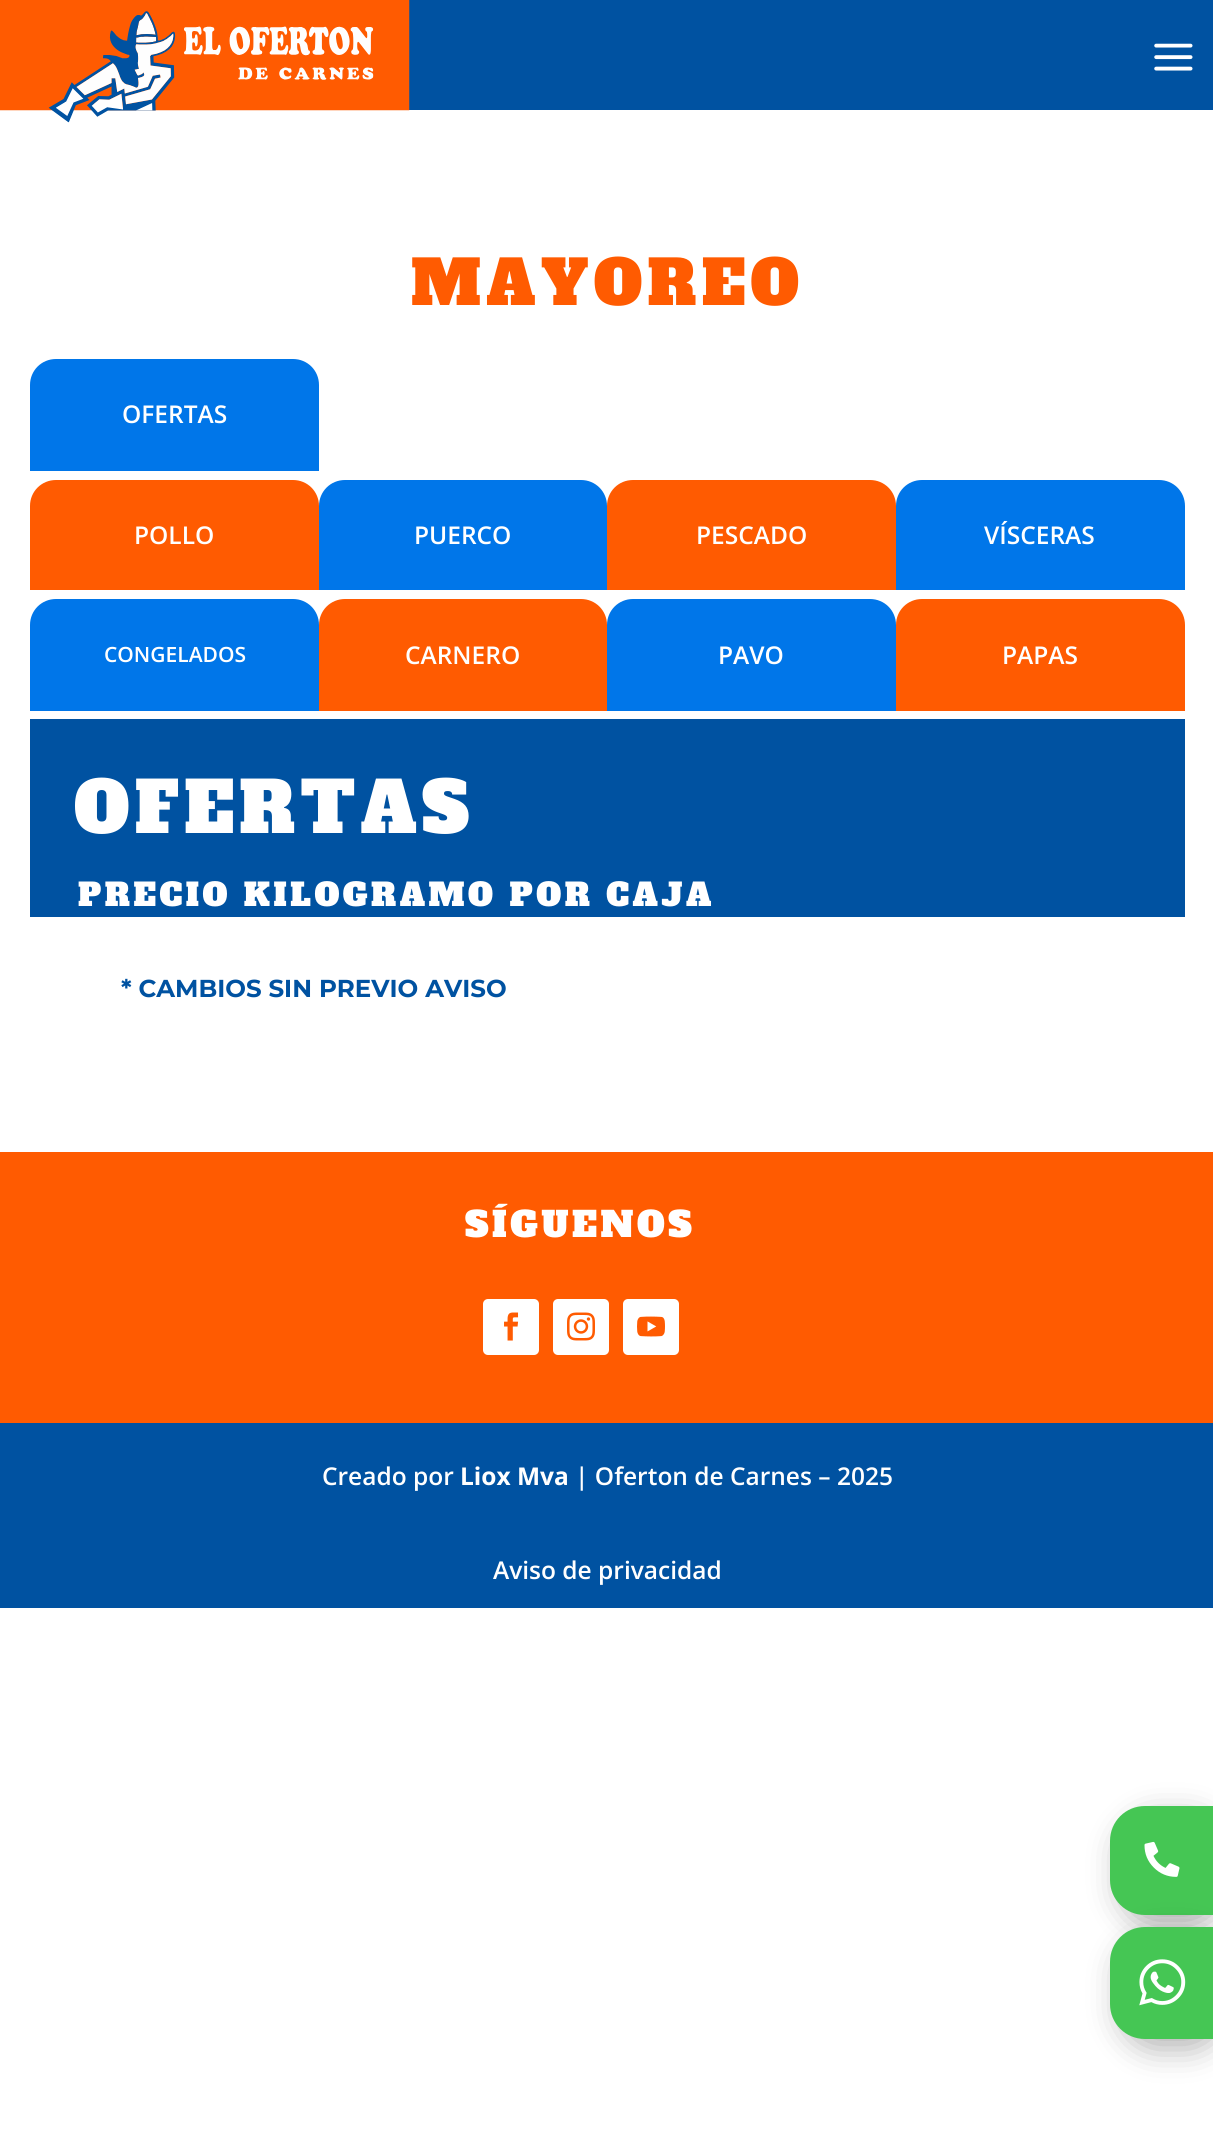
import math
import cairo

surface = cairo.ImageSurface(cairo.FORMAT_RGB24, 1213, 2137)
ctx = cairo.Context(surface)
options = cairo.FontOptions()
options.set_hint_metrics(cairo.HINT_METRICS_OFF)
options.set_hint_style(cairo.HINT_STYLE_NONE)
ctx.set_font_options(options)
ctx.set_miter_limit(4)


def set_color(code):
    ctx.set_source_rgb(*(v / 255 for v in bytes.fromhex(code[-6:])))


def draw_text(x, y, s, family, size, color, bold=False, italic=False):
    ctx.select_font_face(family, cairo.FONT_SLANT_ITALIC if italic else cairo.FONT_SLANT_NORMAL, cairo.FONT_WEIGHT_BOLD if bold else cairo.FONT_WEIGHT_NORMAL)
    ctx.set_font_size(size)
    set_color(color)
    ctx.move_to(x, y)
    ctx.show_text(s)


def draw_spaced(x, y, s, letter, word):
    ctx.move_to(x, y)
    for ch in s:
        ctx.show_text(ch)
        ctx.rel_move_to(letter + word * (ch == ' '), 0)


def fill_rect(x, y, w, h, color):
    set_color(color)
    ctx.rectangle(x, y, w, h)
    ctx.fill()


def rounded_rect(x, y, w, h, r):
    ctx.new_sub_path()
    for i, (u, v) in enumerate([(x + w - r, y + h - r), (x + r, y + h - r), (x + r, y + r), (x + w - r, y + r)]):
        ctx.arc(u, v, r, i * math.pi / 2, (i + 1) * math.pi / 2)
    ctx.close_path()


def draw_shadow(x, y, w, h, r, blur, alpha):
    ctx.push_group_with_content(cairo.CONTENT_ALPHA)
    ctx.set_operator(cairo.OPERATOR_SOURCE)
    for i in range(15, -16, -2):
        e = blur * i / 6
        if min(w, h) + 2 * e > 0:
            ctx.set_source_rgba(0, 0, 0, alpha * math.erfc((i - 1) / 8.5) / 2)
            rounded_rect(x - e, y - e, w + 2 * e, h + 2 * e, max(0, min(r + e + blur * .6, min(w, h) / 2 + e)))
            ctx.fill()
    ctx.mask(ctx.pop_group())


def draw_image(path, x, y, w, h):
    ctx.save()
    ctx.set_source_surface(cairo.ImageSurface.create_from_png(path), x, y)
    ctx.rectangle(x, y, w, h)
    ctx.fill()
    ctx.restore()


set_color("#ffffff")
ctx.paint()
fill_rect(409, 0, 804, 110, "#0052a1")
draw_image("assets/img1.png", 0, 0, 410, 123)
draw_image("assets/img2.png", 1154, 43, 39, 28)
ctx.select_font_face("Alfa Slab One")
ctx.set_font_size(61.25)
set_color("#ff5b01")
draw_spaced(411, 305, "MAYOREO", 5.25, 0)
set_color("#0076e9")
ctx.new_path()
ctx.move_to(56, 359)
ctx.line_to(293, 359)
ctx.curve_to(307.5, 359, 319, 370.5, 319, 385)
ctx.line_to(319, 471)
ctx.line_to(30, 471)
ctx.line_to(30, 385)
ctx.curve_to(30, 370.5, 41.5, 359, 56, 359)
ctx.close_path()
ctx.fill()
draw_text(122, 423, "OFERTAS", "Open Sans SemiBold", 24.5, "#ffffff")
set_color("#ff5b01")
ctx.new_path()
ctx.move_to(56, 480)
ctx.line_to(293, 480)
ctx.curve_to(307.5, 480, 319, 491.5, 319, 506)
ctx.line_to(319, 590)
ctx.line_to(30, 590)
ctx.line_to(30, 506)
ctx.curve_to(30, 491.5, 41.5, 480, 56, 480)
ctx.close_path()
ctx.fill()
draw_text(134, 544, "POLLO", "Open Sans SemiBold", 24.5, "#ffffff")
set_color("#0076e9")
ctx.new_path()
ctx.move_to(345, 480)
ctx.line_to(581, 480)
ctx.curve_to(595.5, 480, 607, 491.5, 607, 506)
ctx.line_to(607, 590)
ctx.line_to(319, 590)
ctx.line_to(319, 506)
ctx.curve_to(319, 491.5, 330.5, 480, 345, 480)
ctx.close_path()
ctx.fill()
draw_text(414, 544, "PUERCO", "Open Sans SemiBold", 24.5, "#ffffff")
set_color("#ff5b01")
ctx.new_path()
ctx.move_to(633, 480)
ctx.line_to(870, 480)
ctx.curve_to(884.5, 480, 896, 491.5, 896, 506)
ctx.line_to(896, 590)
ctx.line_to(607, 590)
ctx.line_to(607, 506)
ctx.curve_to(607, 491.5, 618.5, 480, 633, 480)
ctx.close_path()
ctx.fill()
draw_text(696, 544, "PESCADO", "Open Sans SemiBold", 24.5, "#ffffff")
set_color("#0076e9")
ctx.new_path()
ctx.move_to(922, 480)
ctx.line_to(1159, 480)
ctx.curve_to(1173.5, 480, 1185, 491.5, 1185, 506)
ctx.line_to(1185, 590)
ctx.line_to(896, 590)
ctx.line_to(896, 506)
ctx.curve_to(896, 491.5, 907.5, 480, 922, 480)
ctx.close_path()
ctx.fill()
draw_text(984, 544, "VÍSCERAS", "Open Sans SemiBold", 24.5, "#ffffff")
set_color("#0076e9")
ctx.new_path()
ctx.move_to(56, 599)
ctx.line_to(293, 599)
ctx.curve_to(307.5, 599, 319, 610.5, 319, 625)
ctx.line_to(319, 711)
ctx.line_to(30, 711)
ctx.line_to(30, 625)
ctx.curve_to(30, 610.5, 41.5, 599, 56, 599)
ctx.close_path()
ctx.fill()
draw_text(104, 662, "CONGELADOS", "Open Sans SemiBold", 21, "#ffffff")
set_color("#ff5b01")
ctx.new_path()
ctx.move_to(345, 599)
ctx.line_to(581, 599)
ctx.curve_to(595.5, 599, 607, 610.5, 607, 625)
ctx.line_to(607, 711)
ctx.line_to(319, 711)
ctx.line_to(319, 625)
ctx.curve_to(319, 610.5, 330.5, 599, 345, 599)
ctx.close_path()
ctx.fill()
draw_text(405, 664, "CARNERO", "Open Sans SemiBold", 24.5, "#ffffff")
set_color("#0076e9")
ctx.new_path()
ctx.move_to(633, 599)
ctx.line_to(870, 599)
ctx.curve_to(884.5, 599, 896, 610.5, 896, 625)
ctx.line_to(896, 711)
ctx.line_to(607, 711)
ctx.line_to(607, 625)
ctx.curve_to(607, 610.5, 618.5, 599, 633, 599)
ctx.close_path()
ctx.fill()
draw_text(718, 664, "PAVO", "Open Sans SemiBold", 24.5, "#ffffff")
set_color("#ff5b01")
ctx.new_path()
ctx.move_to(922, 599)
ctx.line_to(1159, 599)
ctx.curve_to(1173.5, 599, 1185, 610.5, 1185, 625)
ctx.line_to(1185, 711)
ctx.line_to(896, 711)
ctx.line_to(896, 625)
ctx.curve_to(896, 610.5, 907.5, 599, 922, 599)
ctx.close_path()
ctx.fill()
draw_text(1002, 664, "PAPAS", "Open Sans SemiBold", 24.5, "#ffffff")
fill_rect(30, 719, 1155, 198, "#0052a1")
ctx.select_font_face("Alfa Slab One")
ctx.set_font_size(70)
set_color("#ffffff")
draw_spaced(74, 833, "OFERTAS", 5.25, 0)
ctx.set_font_size(31.5)
draw_spaced(78, 906, "PRECIO KILOGRAMO POR CAJA", 3.5, 0)
draw_text(121, 997, "* CAMBIOS SIN PREVIO AVISO", "Montserrat", 24.5, "#0052a1", bold=True)
set_color("#000000")
draw_shadow(1120, 1817, 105, 108, 35, 16, 0.3)
set_color("#45c654")
ctx.new_path()
ctx.move_to(1145, 1806)
ctx.line_to(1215, 1806)
ctx.line_to(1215, 1915)
ctx.line_to(1145, 1915)
ctx.curve_to(1125.5, 1915, 1110, 1899.5, 1110, 1880)
ctx.line_to(1110, 1841)
ctx.curve_to(1110, 1821.5, 1125.5, 1806, 1145, 1806)
ctx.close_path()
ctx.fill()
draw_image("assets/img3.png", 1144, 1841, 36, 36)
set_color("#000000")
draw_shadow(1120, 1937, 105, 112, 35, 16, 0.3)
set_color("#45c654")
ctx.new_path()
ctx.move_to(1145, 1927)
ctx.line_to(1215, 1927)
ctx.line_to(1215, 2039)
ctx.line_to(1145, 2039)
ctx.curve_to(1125.5, 2039, 1110, 2023.5, 1110, 2004)
ctx.line_to(1110, 1962)
ctx.curve_to(1110, 1942.5, 1125.5, 1927, 1145, 1927)
ctx.close_path()
ctx.fill()
draw_image("assets/img4.png", 1139, 1959, 47, 47)
fill_rect(0, 1152, 1213, 271, "#ff5b01")
ctx.select_font_face("Alfa Slab One")
ctx.set_font_size(35)
set_color("#ffffff")
draw_spaced(465, 1237, "SÍGUENOS", 3.5, 0)
rounded_rect(483, 1299, 56, 56, 5)
ctx.fill()
draw_image("assets/img5.png", 504, 1312, 15, 29)
rounded_rect(553, 1299, 56, 56, 5)
ctx.fill()
draw_image("assets/img6.png", 567, 1312, 28, 29)
rounded_rect(623, 1299, 56, 56, 5)
ctx.fill()
draw_image("assets/img7.png", 637, 1316, 28, 21)
fill_rect(0, 1423, 1213, 185, "#0052a1")
draw_text(322, 1485, "Creado por", "Open Sans SemiBold", 24.5, "#ffffff")
draw_text(460, 1485, "Liox Mva", "Open Sans", 24.5, "#ffffff", bold=True)
draw_text(575, 1485, "| Oferton de Carnes – 2025", "Open Sans SemiBold", 24.5, "#ffffff")
draw_text(493, 1579, "Aviso de privacidad", "Open Sans SemiBold", 24.5, "#ffffff")
surface.write_to_png("output.png")
